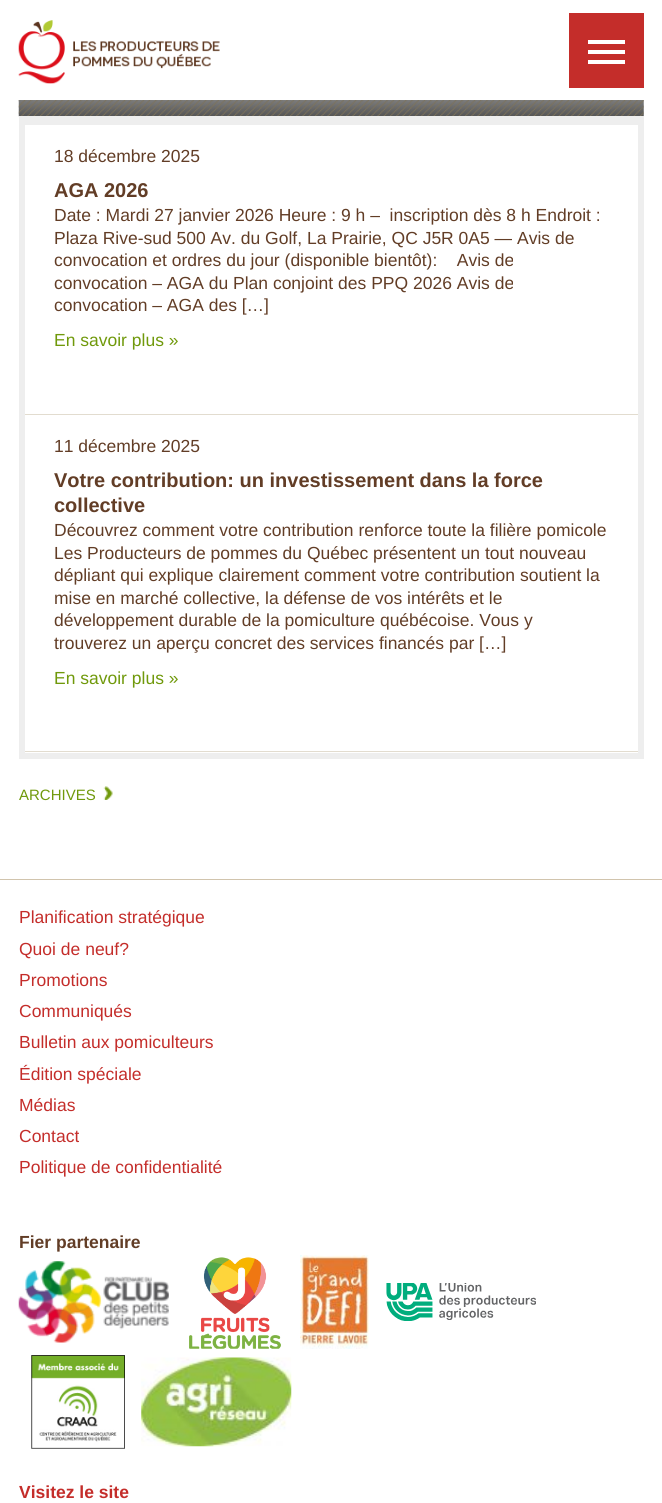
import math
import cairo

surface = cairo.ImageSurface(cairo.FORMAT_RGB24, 662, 1503)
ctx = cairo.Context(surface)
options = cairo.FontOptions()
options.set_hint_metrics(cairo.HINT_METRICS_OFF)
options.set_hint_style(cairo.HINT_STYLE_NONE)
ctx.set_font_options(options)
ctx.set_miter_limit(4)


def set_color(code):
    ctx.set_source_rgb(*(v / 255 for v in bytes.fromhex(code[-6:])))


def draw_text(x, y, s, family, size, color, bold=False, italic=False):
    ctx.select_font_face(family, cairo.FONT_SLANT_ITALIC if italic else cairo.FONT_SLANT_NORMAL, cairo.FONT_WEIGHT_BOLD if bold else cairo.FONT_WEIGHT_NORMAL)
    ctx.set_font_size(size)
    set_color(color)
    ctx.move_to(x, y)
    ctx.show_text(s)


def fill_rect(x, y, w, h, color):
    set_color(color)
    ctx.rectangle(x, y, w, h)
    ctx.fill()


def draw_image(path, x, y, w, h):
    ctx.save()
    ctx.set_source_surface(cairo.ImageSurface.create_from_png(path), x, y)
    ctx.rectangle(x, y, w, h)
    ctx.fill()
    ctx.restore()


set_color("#ffffff")
ctx.paint()
draw_image("assets/img1.png", 18, 20, 202, 64)
fill_rect(569, 13, 75, 75, "#c42d2a")
fill_rect(588, 50, 37, 4, "#ffffff")
fill_rect(588, 40, 37, 4, "#ffffff")
fill_rect(588, 60, 37, 4, "#ffffff")
draw_image("assets/img2.png", 18, 100, 626, 17)
fill_rect(25, 116, 613, 9, "#eeeeee")
fill_rect(638, 116, 6, 643, "#eeeeee")
fill_rect(19, 753, 625, 6, "#eeeeee")
fill_rect(19, 116, 6, 643, "#eeeeee")
fill_rect(25, 414, 613, 1, "#e2dccf")
draw_text(54, 162, "18 décembre 2025", "Liberation Sans", 17.5, "#623d26")
draw_text(54, 197, "AGA 2026", "Liberation Sans", 20, "#623d26", bold=True)
draw_text(54, 221, "Date : Mardi 27 janvier 2026 Heure : 9 h –  inscription dès 8 h Endroit :", "Liberation Sans", 17.5, "#623d26")
draw_text(54, 244, "Plaza Rive-sud 500 Av. du Golf, La Prairie, QC J5R 0A5 — Avis de", "Liberation Sans", 17.5, "#623d26")
draw_text(54, 266, "convocation et ordres du jour (disponible bientôt):    Avis de", "Liberation Sans", 17.5, "#623d26")
draw_text(54, 289, "convocation – AGA du Plan conjoint des PPQ 2026 Avis de", "Liberation Sans", 17.5, "#623d26")
draw_text(54, 311, "convocation – AGA des […]", "Liberation Sans", 17.5, "#623d26")
draw_text(54, 346, "En savoir plus »", "Liberation Sans", 17.5, "#70990b")
fill_rect(25, 751, 613, 1, "#e2dccf")
draw_text(54, 452, "11 décembre 2025", "Liberation Sans", 17.5, "#623d26")
draw_text(54, 487, "Votre contribution: un investissement dans la force", "Liberation Sans", 20, "#623d26", bold=True)
draw_text(54, 512, "collective", "Liberation Sans", 20, "#623d26", bold=True)
draw_text(54, 536, "Découvrez comment votre contribution renforce toute la filière pomicole", "Liberation Sans", 17.5, "#623d26")
draw_text(54, 559, "Les Producteurs de pommes du Québec présentent un tout nouveau", "Liberation Sans", 17.5, "#623d26")
draw_text(54, 581, "dépliant qui explique clairement comment votre contribution soutient la", "Liberation Sans", 17.5, "#623d26")
draw_text(54, 604, "mise en marché collective, la défense de vos intérêts et le", "Liberation Sans", 17.5, "#623d26")
draw_text(54, 626, "développement durable de la pomiculture québécoise. Vous y", "Liberation Sans", 17.5, "#623d26")
draw_text(54, 649, "trouverez un aperçu concret des services financés par […]", "Liberation Sans", 17.5, "#623d26")
draw_text(54, 684, "En savoir plus »", "Liberation Sans", 17.5, "#70990b")
draw_text(19, 800, "ARCHIVES", "Liberation Sans", 15, "#70990b")
draw_image("assets/img3.png", 103, 786, 10, 14)
fill_rect(0, 879, 662, 1, "#d1c4ad")
draw_text(19, 923, "Planification stratégique", "Liberation Sans", 17.5, "#c42d2a")
draw_text(19, 955, "Quoi de neuf?", "Liberation Sans", 17.5, "#c42d2a")
draw_text(19, 986, "Promotions", "Liberation Sans", 17.5, "#c42d2a")
draw_text(19, 1017, "Communiqués", "Liberation Sans", 17.5, "#c42d2a")
draw_text(19, 1048, "Bulletin aux pomiculteurs", "Liberation Sans", 17.5, "#c42d2a")
draw_text(19, 1080, "Édition spéciale", "Liberation Sans", 17.5, "#c42d2a")
draw_text(19, 1111, "Médias", "Liberation Sans", 17.5, "#c42d2a")
draw_text(19, 1142, "Contact", "Liberation Sans", 17.5, "#c42d2a")
draw_text(19, 1173, "Politique de confidentialité", "Liberation Sans", 17.5, "#c42d2a")
draw_text(19, 1248, "Fier partenaire", "Liberation Sans", 17.5, "#623d26", bold=True)
draw_image("assets/img4.png", 18, 1261, 151, 82)
draw_image("assets/img5.png", 189, 1257, 92, 92)
draw_image("assets/img6.png", 300, 1255, 69, 94)
draw_image("assets/img7.png", 386, 1283, 150, 38)
draw_image("assets/img8.png", 31, 1355, 94, 94)
draw_image("assets/img9.png", 141, 1357, 151, 90)
draw_text(19, 1498, "Visitez le site", "Liberation Sans", 17.5, "#c42d2a", bold=True)
surface.write_to_png("output.png")
